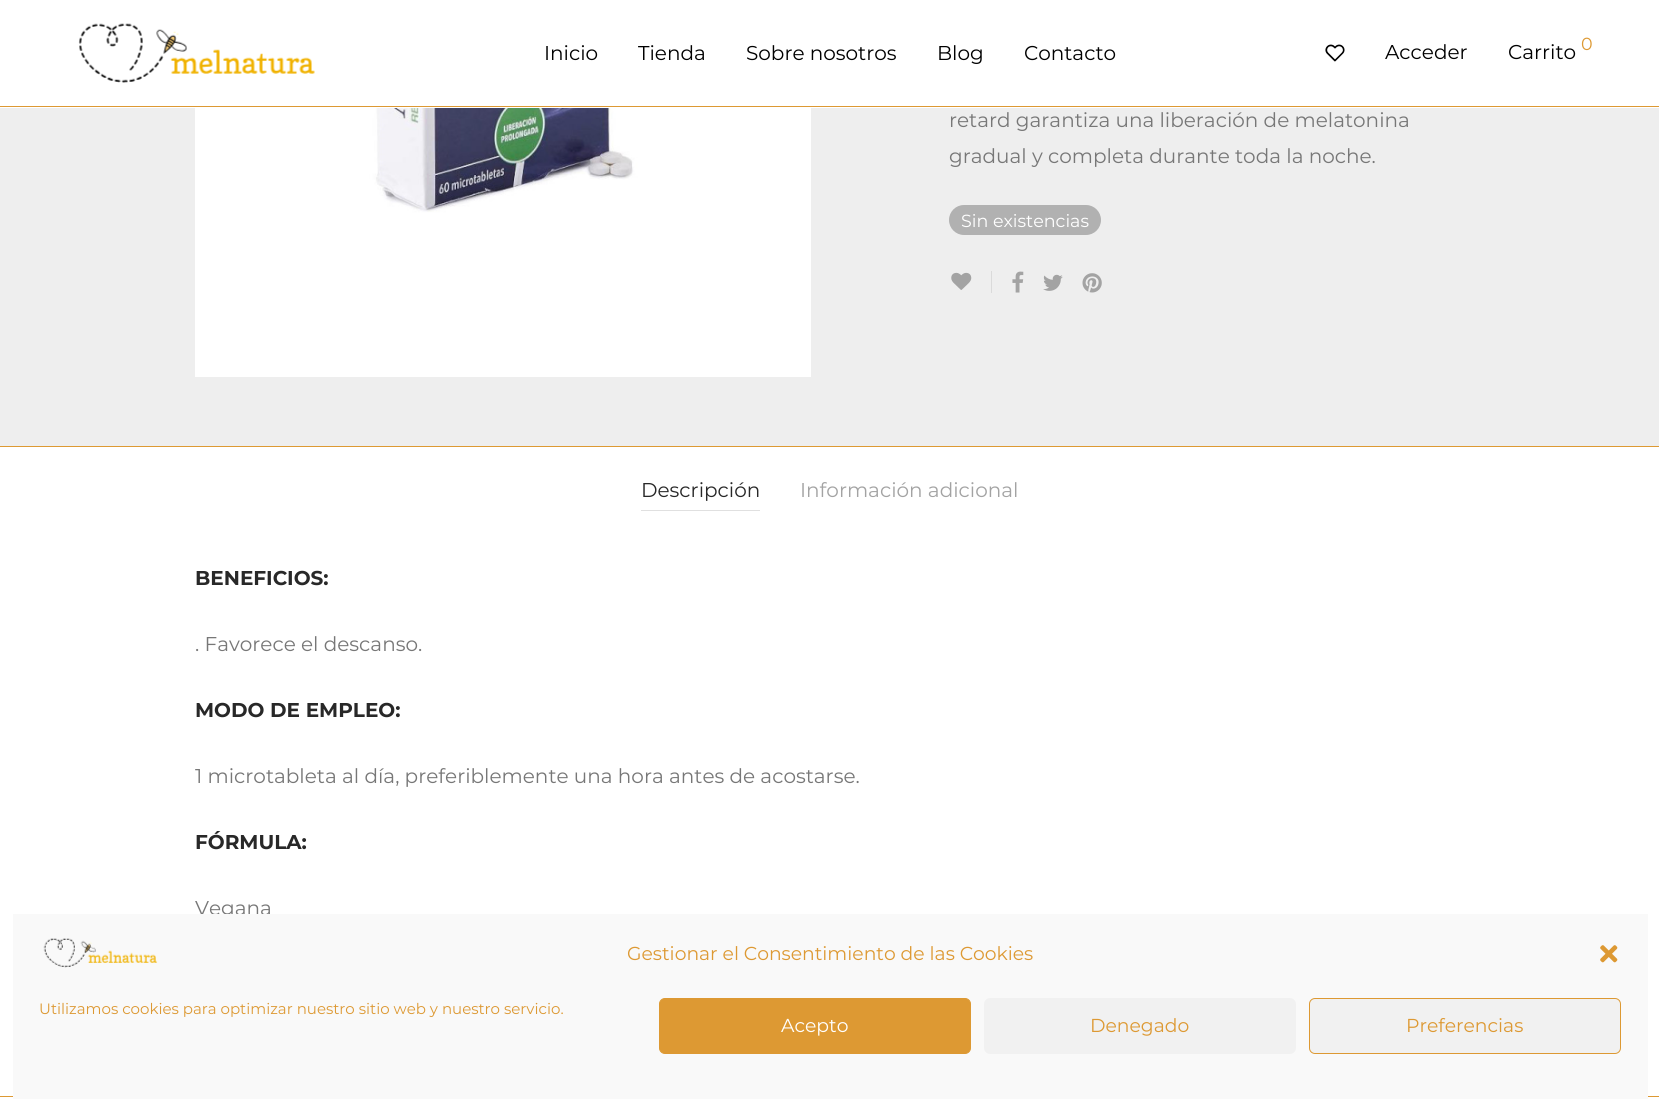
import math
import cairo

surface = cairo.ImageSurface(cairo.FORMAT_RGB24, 1659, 1111)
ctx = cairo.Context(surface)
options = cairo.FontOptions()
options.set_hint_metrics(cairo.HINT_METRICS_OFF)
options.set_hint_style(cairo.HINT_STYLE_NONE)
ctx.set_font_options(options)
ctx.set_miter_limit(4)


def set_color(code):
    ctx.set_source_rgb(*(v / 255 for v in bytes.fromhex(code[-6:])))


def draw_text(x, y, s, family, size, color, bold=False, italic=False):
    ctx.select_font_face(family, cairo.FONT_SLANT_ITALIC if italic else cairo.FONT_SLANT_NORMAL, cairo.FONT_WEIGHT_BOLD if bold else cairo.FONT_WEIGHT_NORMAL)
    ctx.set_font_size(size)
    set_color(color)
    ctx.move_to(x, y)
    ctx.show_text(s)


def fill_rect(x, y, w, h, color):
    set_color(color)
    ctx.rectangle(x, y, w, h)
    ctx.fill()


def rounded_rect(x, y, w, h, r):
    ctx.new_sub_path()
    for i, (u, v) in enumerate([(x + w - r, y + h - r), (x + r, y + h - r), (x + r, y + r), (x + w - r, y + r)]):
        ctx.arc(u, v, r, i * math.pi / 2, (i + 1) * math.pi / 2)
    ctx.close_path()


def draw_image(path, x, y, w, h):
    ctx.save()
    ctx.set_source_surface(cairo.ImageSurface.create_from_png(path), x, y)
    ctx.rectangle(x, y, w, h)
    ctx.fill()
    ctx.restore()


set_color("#ffffff")
ctx.paint()
fill_rect(0, 106, 1659, 1, "#dd9933")
draw_image("assets/img1.png", 78, 23, 237, 60)
draw_text(544, 60, "Inicio", "Montserrat", 20, "#000000")
draw_text(638, 60, "Tienda", "Montserrat", 20, "#000000")
draw_text(746, 60, "Sobre nosotros", "Montserrat", 20, "#000000")
draw_text(937, 60, "Blog", "Montserrat", 20, "#000000")
draw_text(1024, 60, "Contacto", "Montserrat", 20, "#000000")
draw_image("assets/img2.png", 1325, 44, 20, 18)
draw_text(1385, 59, "Acceder", "Montserrat", 20, "#000000")
draw_text(1508, 59, "Carrito", "Montserrat", 20, "#000000")
draw_text(1581, 50, "0", "Montserrat", 17.5, "#dd9933")
fill_rect(0, 108, 1659, 338, "#eeeeee")
draw_image("assets/img3.png", 195, 108, 616, 269)
draw_text(949, 127, "retard garantiza una liberación de melatonina", "Montserrat", 20, "#777777")
draw_text(949, 163, "gradual y completa durante toda la noche.", "Montserrat", 20, "#777777")
set_color("#b1b1b1")
rounded_rect(949, 205, 152, 30, 15)
ctx.fill()
draw_text(961, 227, "Sin existencias", "Montserrat", 17.5, "#ffffff")
fill_rect(991, 271, 1, 22, "#dadada")
draw_image("assets/img4.png", 951, 272, 21, 18)
draw_image("assets/img5.png", 1012, 271, 12, 22)
draw_image("assets/img6.png", 1043, 274, 20, 17)
draw_image("assets/img7.png", 1082, 273, 20, 20)
fill_rect(0, 446, 1659, 1, "#dd9933")
fill_rect(0, 1096, 1659, 1, "#dd9933")
fill_rect(641, 510, 119, 1, "#e0e0e0")
draw_text(641, 497, "Descripción", "Montserrat", 20, "#282828")
draw_text(800, 497, "Información adicional", "Montserrat", 20, "#a3a3a3")
draw_text(195, 585, "BENEFICIOS:", "Montserrat", 20, "#282828", bold=True)
draw_text(195, 651, ". Favorece el descanso.", "Montserrat", 20, "#777777")
draw_text(195, 717, "MODO DE EMPLEO:", "Montserrat", 20, "#282828", bold=True)
draw_text(195, 783, "1 microtableta al día, preferiblemente una hora antes de acostarse.", "Montserrat", 20, "#777777")
draw_text(195, 849, "FÓRMULA:", "Montserrat", 20, "#282828", bold=True)
draw_text(195, 915, "Vegana", "Montserrat", 20, "#777777")
fill_rect(13, 914, 1635, 185, "#f9f9f9")
draw_image("assets/img8.png", 43, 938, 115, 30)
draw_text(627, 960, "Gestionar el Consentimiento de las Cookies", "Montserrat", 18.75, "#dd9933")
draw_image("assets/img9.png", 1600, 945, 18, 18)
draw_text(39, 1014, "Utilizamos cookies para optimizar nuestro sitio web y nuestro servicio.", "Montserrat", 15, "#dd9933")
rounded_rect(659.5, 998.5, 311, 55, 5.5)
ctx.fill_preserve()
ctx.set_line_width(1)
ctx.stroke()
draw_text(781, 1032, "Acepto", "Montserrat", 18.75, "#ffffff")
set_color("#f1f1f1")
rounded_rect(984, 998, 312, 56, 6)
ctx.fill()
draw_text(1090, 1032, "Denegado", "Montserrat", 18.75, "#dd9933")
set_color("#f1f1f1")
rounded_rect(1309.5, 998.5, 311, 55, 5.5)
ctx.fill_preserve()
set_color("#dd9933")
ctx.stroke()
draw_text(1406, 1032, "Preferencias", "Montserrat", 18.75, "#dd9933")
surface.write_to_png("output.png")
